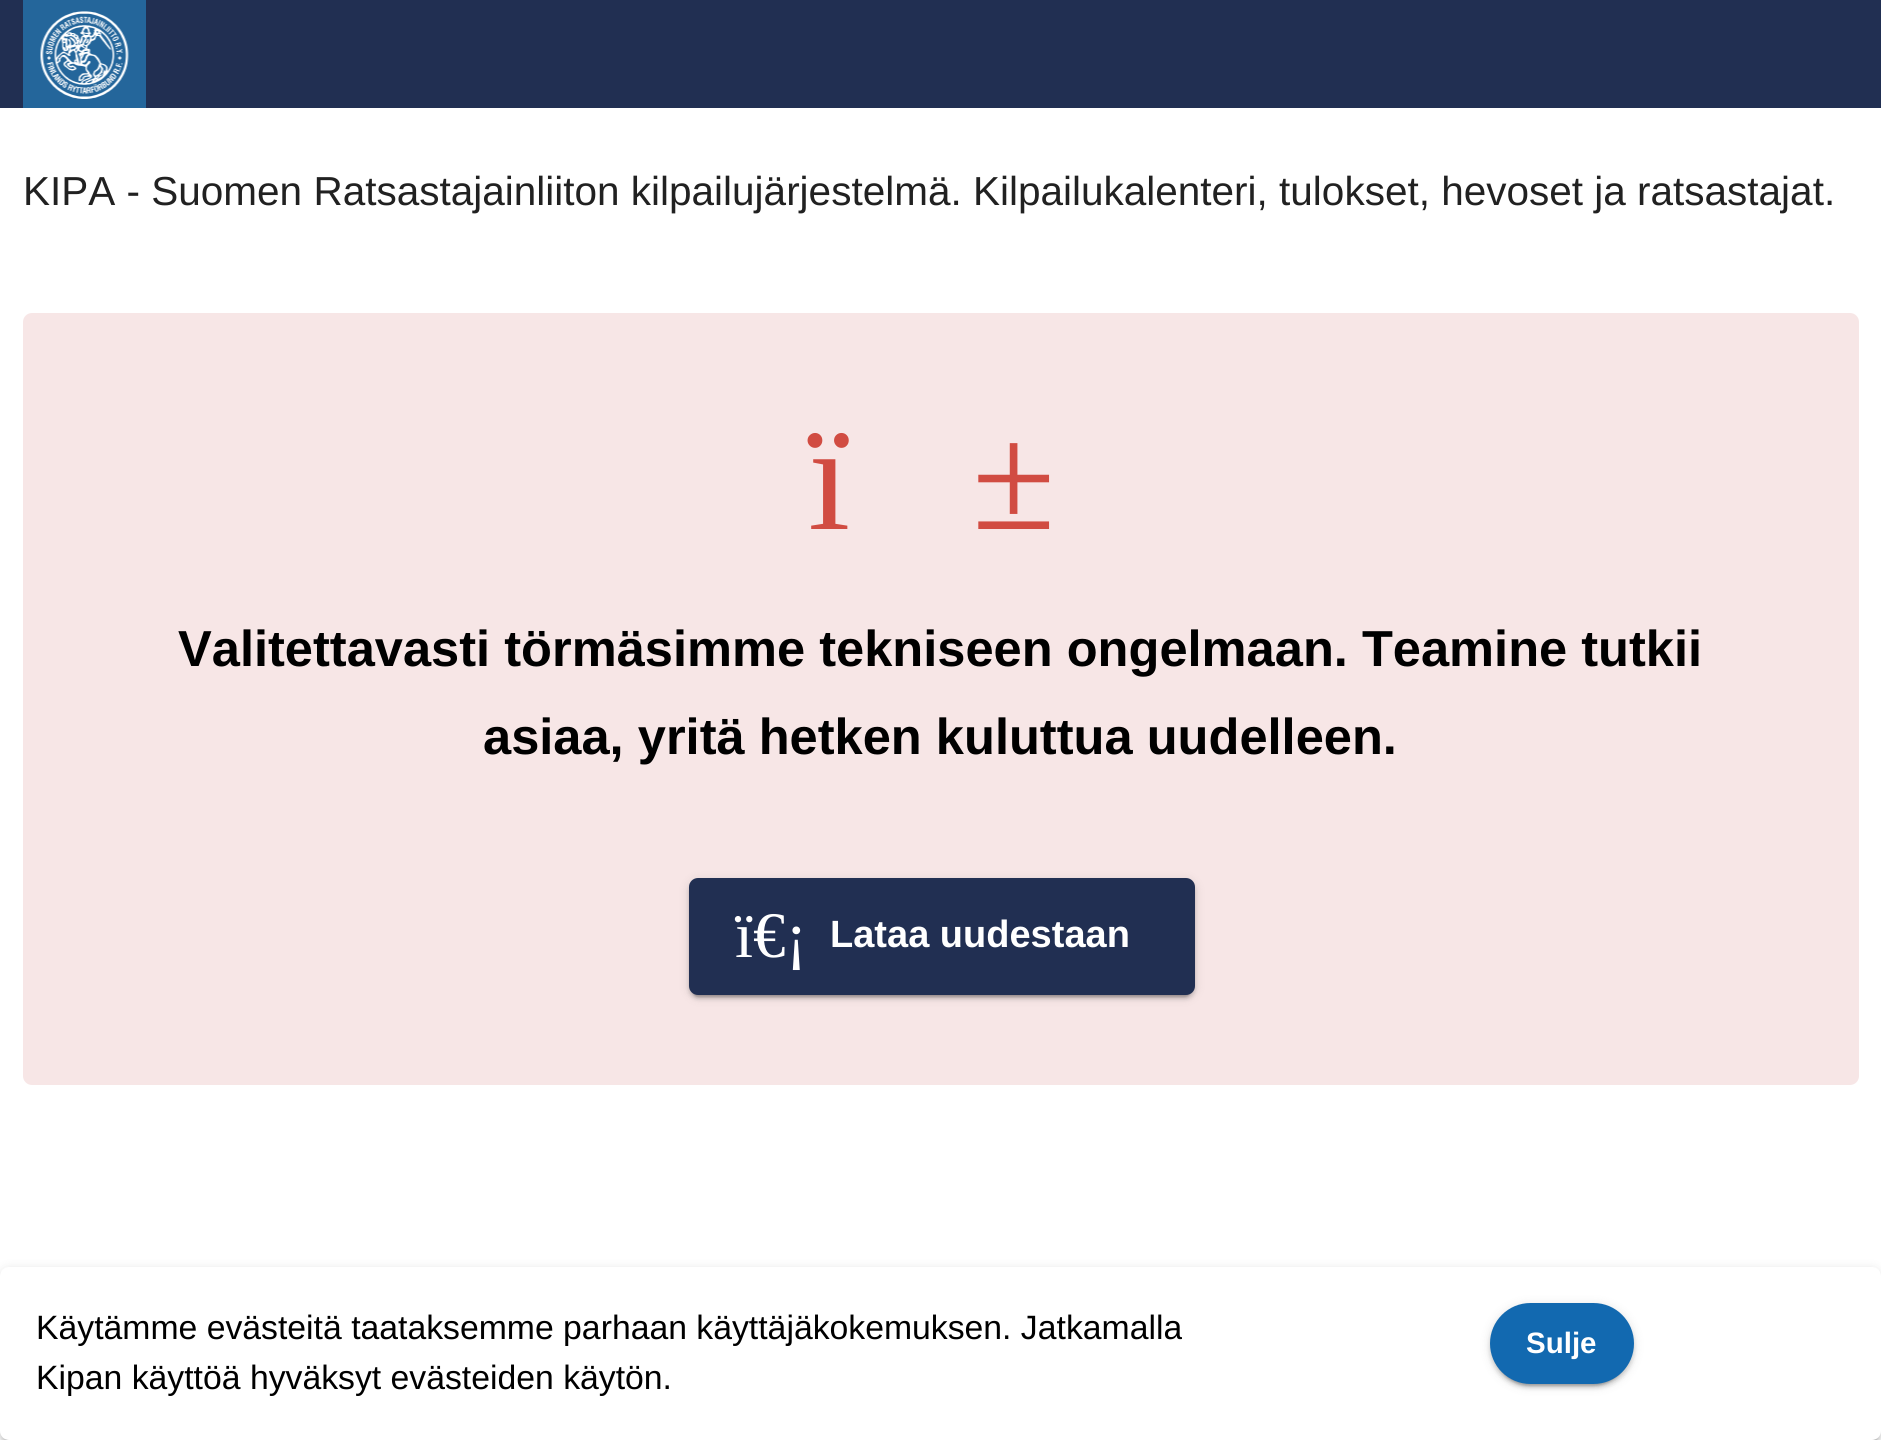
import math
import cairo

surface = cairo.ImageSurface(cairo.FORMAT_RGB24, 1881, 1440)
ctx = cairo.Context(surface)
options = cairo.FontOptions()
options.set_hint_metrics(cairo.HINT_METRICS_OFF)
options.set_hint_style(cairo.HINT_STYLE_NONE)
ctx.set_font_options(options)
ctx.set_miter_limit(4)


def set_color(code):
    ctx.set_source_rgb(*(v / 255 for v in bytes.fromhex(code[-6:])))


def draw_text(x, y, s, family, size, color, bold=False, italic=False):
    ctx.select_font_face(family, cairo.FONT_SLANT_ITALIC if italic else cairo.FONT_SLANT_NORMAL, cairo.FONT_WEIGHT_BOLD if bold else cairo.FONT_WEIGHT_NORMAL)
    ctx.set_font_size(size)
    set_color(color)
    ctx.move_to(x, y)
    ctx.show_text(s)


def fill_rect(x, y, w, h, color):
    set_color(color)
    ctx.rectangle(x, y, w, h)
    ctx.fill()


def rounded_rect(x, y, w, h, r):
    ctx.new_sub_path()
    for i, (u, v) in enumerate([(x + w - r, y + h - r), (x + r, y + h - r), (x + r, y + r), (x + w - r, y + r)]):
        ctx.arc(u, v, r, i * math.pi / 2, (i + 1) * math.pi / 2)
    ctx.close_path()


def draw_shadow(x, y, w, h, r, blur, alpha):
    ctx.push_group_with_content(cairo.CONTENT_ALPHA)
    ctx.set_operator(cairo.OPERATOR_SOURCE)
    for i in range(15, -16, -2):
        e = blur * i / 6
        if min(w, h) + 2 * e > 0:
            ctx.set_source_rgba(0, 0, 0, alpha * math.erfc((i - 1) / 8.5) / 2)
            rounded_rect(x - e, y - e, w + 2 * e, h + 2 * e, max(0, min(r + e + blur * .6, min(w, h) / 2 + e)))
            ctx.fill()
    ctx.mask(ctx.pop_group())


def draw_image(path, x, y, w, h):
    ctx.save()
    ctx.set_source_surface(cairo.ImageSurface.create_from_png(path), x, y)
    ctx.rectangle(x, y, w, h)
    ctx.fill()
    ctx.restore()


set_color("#ffffff")
ctx.paint()
fill_rect(0, 0, 1881, 108, "#212f52")
fill_rect(23, 0, 123, 108, "#24669b")
draw_image("assets/img1.png", 40, 11, 89, 88)
draw_text(23, 205, "KIPA - Suomen Ratsastajainliiton kilpailujärjestelmä. Kilpailukalenteri, tulokset, hevoset ja ratsastajat.", "Liberation Sans", 40.5, "#212121")
set_color("#f7e6e6")
rounded_rect(23, 313, 1836, 772, 9)
ctx.fill()
draw_text(808, 529, "ï", "Liberation Serif", 152, "#d14c42")
draw_text(972, 529, "±", "Liberation Serif", 152, "#d14c42")
draw_text(178, 666, "Valitettavasti törmäsimme tekniseen ongelmaan. Teamine tutkii", "Liberation Sans", 50.6, "#000000", bold=True)
draw_text(483, 754, "asiaa, yritä hetken kuluttua uudelleen.", "Liberation Sans", 50.6, "#000000", bold=True)
set_color("#000000")
draw_shadow(689, 880, 506, 117, 9, 5.5, 0.12)
draw_shadow(689, 882, 506, 117, 9, 2, 0.14)
draw_shadow(693, 889, 497, 108, 5, 1, 0.2)
set_color("#212f52")
rounded_rect(689, 878, 506, 117, 9)
ctx.fill()
draw_text(735, 957, "ï€¡", "Liberation Serif", 65, "#ffffff")
draw_text(830, 947, "Lataa uudestaan", "Liberation Sans", 38, "#ffffff", bold=True)
set_color("#000000")
draw_shadow(0, 1269, 1881, 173, 9, 5.5, 0.12)
draw_shadow(0, 1271, 1881, 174, 9, 2, 0.14)
draw_shadow(5, 1278, 1872, 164, 5, 1, 0.2)
set_color("#ffffff")
rounded_rect(0, 1267, 1881, 173, 9)
ctx.fill()
draw_text(36, 1339, "Käytämme evästeitä taataksemme parhaan käyttäjäkokemuksen. Jatkamalla", "Liberation Sans", 33.75, "#000000")
draw_text(36, 1389, "Kipan käyttöä hyväksyt evästeiden käytön.", "Liberation Sans", 33.75, "#000000")
set_color("#000000")
draw_shadow(1490, 1305, 144, 81, 40.5, 5.5, 0.12)
draw_shadow(1490, 1307, 144, 81, 40.5, 2, 0.14)
draw_shadow(1494, 1314, 135, 72, 36, 1, 0.2)
set_color("#1269b0")
rounded_rect(1490, 1303, 144, 81, 40.5)
ctx.fill()
draw_text(1526, 1353, "Sulje", "Liberation Sans", 29.5, "#ffffff", bold=True)
surface.write_to_png("output.png")
